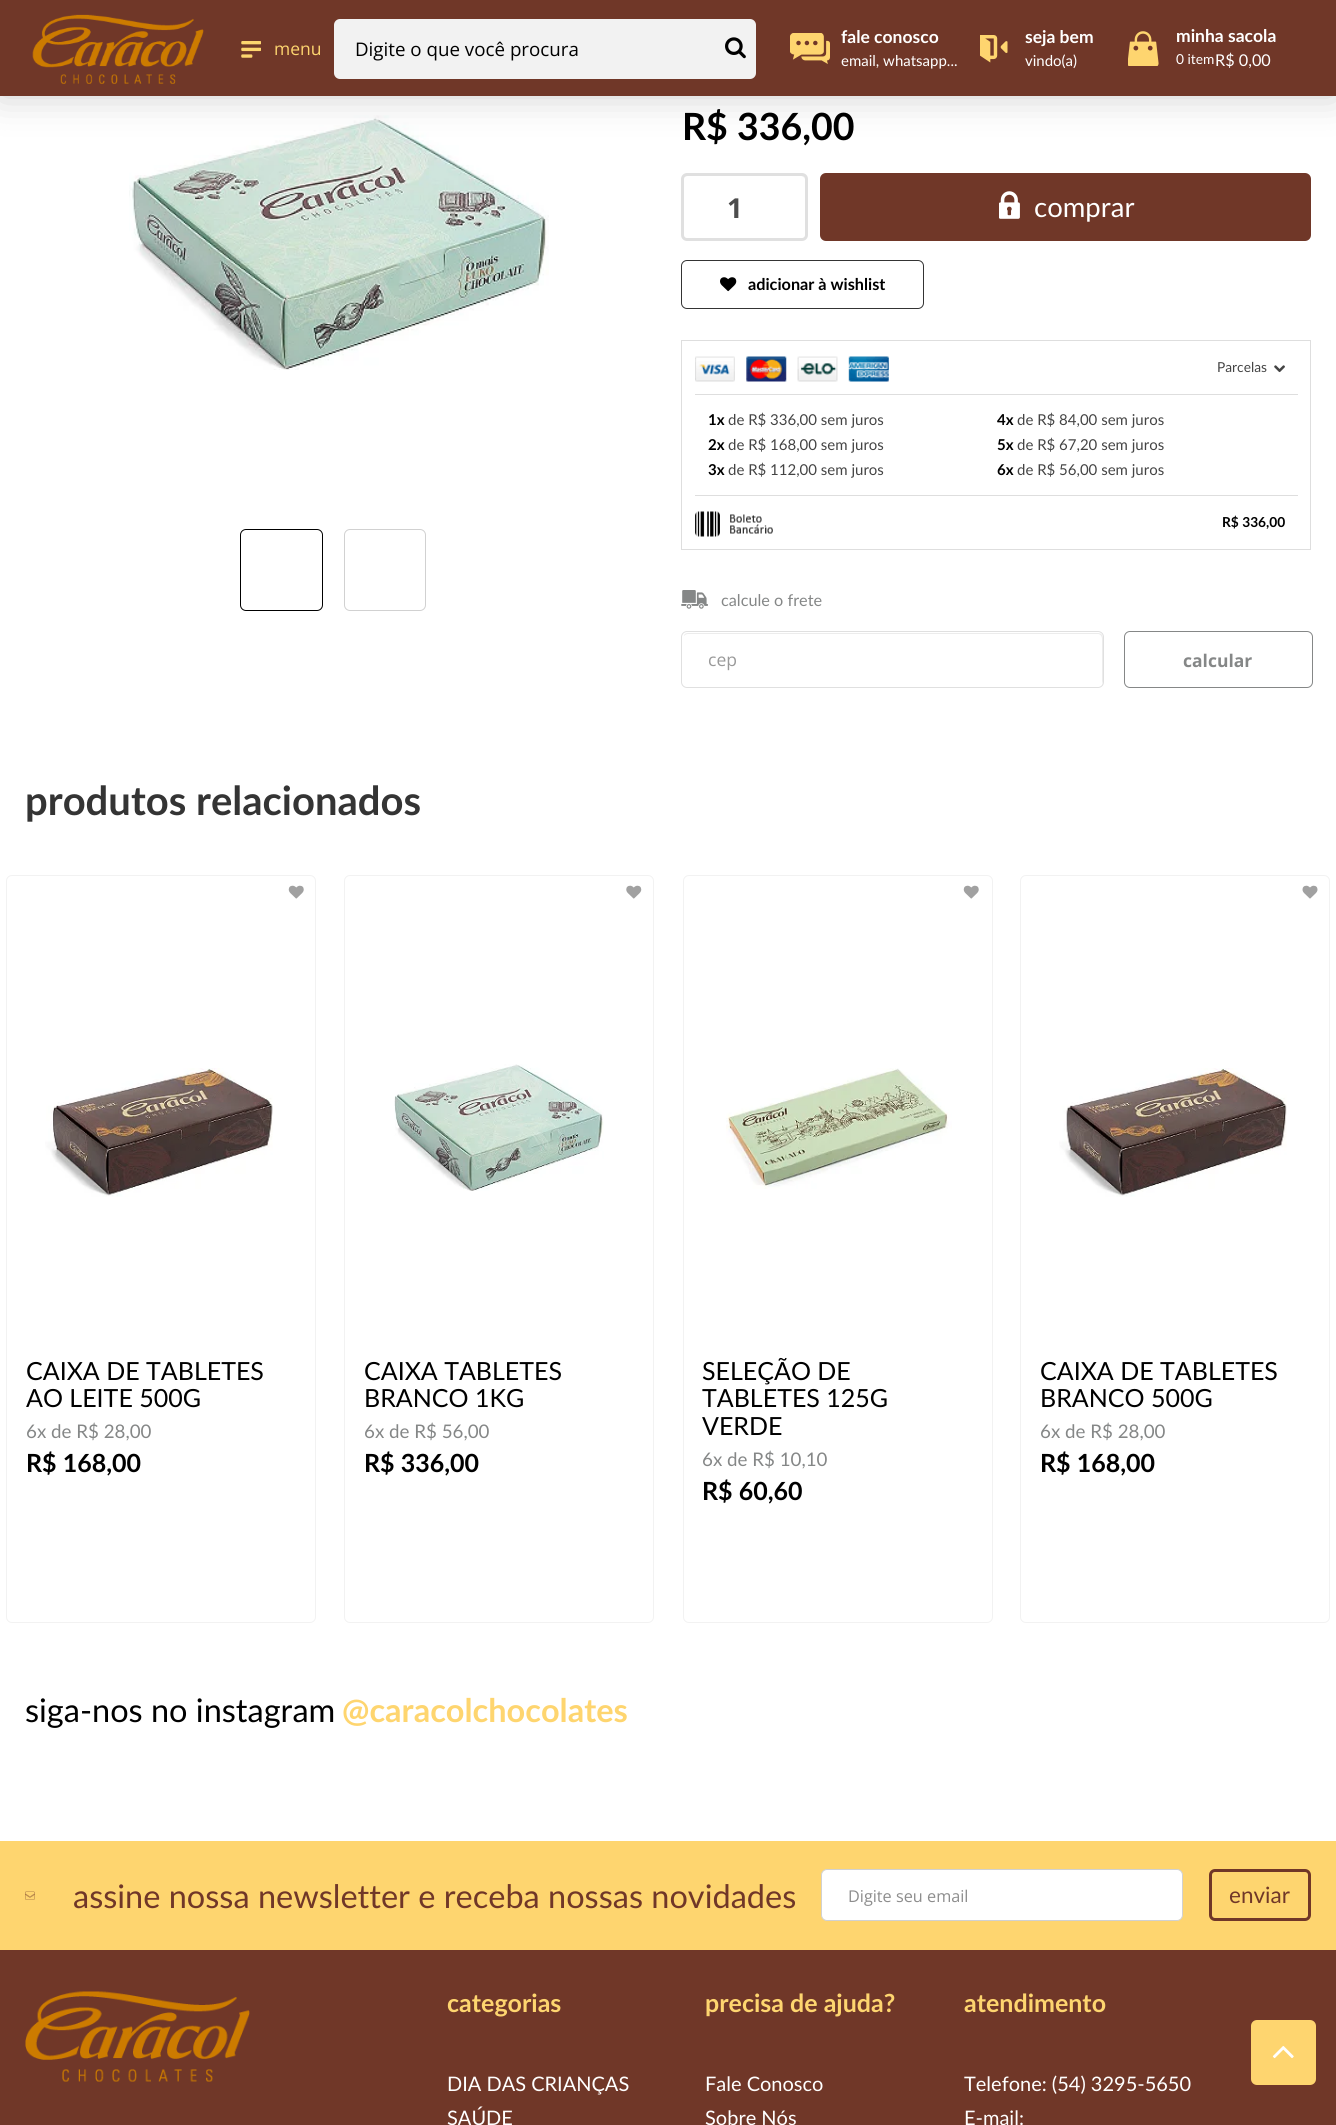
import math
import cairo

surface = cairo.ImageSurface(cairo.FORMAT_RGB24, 1336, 2125)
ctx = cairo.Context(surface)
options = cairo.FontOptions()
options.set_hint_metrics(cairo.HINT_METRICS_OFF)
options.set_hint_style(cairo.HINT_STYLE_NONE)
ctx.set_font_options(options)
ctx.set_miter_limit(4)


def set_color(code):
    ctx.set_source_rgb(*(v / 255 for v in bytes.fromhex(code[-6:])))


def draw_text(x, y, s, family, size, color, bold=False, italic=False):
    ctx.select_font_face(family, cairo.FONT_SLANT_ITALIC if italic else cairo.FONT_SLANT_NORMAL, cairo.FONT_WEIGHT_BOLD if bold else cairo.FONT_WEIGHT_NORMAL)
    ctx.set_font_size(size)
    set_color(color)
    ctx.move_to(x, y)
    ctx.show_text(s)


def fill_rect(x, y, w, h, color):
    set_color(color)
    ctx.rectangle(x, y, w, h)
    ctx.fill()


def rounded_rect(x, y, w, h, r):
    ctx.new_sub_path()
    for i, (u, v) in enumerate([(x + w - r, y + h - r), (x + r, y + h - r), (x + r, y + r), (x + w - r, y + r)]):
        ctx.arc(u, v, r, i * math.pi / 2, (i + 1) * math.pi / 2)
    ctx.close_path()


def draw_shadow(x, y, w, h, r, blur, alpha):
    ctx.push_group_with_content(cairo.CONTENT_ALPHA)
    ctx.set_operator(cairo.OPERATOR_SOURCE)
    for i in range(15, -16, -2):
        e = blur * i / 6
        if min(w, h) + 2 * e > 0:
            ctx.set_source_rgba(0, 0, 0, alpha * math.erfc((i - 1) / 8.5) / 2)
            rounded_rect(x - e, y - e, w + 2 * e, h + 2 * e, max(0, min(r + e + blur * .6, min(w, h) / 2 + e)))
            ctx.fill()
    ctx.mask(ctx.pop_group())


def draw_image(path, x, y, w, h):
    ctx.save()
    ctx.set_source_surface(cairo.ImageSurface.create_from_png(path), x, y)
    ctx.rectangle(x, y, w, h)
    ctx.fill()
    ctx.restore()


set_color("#ffffff")
ctx.paint()
draw_image("assets/img7.png", 129, 115, 420, 255)
set_color("#000000")
draw_shadow(0, 0, 1336, 96, 0, 19, 0.2)
fill_rect(0, 0, 1336, 96, "#703728")
draw_image("assets/img1.png", 32, 14, 172, 70)
draw_image("assets/img2.png", 241, 41, 20, 17)
draw_text(274, 55, "menu", "Open Sans", 17.5, "#fed56f")
set_color("#f2f2f2")
rounded_rect(334, 19, 422, 60, 6)
ctx.fill()
draw_text(355, 56, "Digite o que você procura", "Open Sans", 18.75, "#000000")
draw_image("assets/img3.png", 725, 37, 21, 22)
draw_image("assets/img4.png", 790, 33, 40, 31)
draw_text(841, 43, "fale conosco", "Lato", 17.5, "#ffffff", bold=True)
draw_text(841, 66, "email, whatsapp...", "Lato", 15, "#ffffff")
draw_image("assets/img5.png", 980, 35, 28, 28)
draw_text(1025, 43, "seja bem", "Lato", 17.5, "#ffffff", bold=True)
draw_text(1025, 66, "vindo(a)", "Lato", 15, "#ffffff")
draw_image("assets/img6.png", 1128, 31, 31, 35)
draw_text(1176, 42, "minha sacola", "Lato", 17.5, "#ffffff", bold=True)
draw_text(1176, 64, "0 item", "Lato", 13.75, "#ffffff")
draw_text(1215, 66, "R$ 0,00", "Lato", 16.25, "#ffffff")
rounded_rect(240.5, 529.5, 82, 81, 5.5)
set_color("#000000")
ctx.set_line_width(1)
ctx.stroke()
rounded_rect(344.5, 529.5, 81, 81, 5.5)
set_color("#d1d1d1")
ctx.stroke()
draw_text(682, 140, "R$ 336,00", "Lato", 37.5, "#000000", bold=True)
set_color("#ececec")
ctx.new_path()
ctx.move_to(688, 176)
ctx.line_to(801, 176)
ctx.curve_to(803, 176, 805, 178, 805, 180)
ctx.curve_to(805, 170, 785, 175, 782, 175)
ctx.line_to(707, 175)
ctx.curve_to(704, 175, 684, 170, 684, 180)
ctx.curve_to(684, 178, 685, 176, 688, 176)
ctx.close_path()
ctx.fill()
rounded_rect(682.5, 174.5, 124, 65, 4.5)
set_color("#e0e0e0")
ctx.set_line_width(3)
ctx.stroke()
draw_text(727, 218, "1", "Open Sans", 27.5, "#4d4d4d", bold=True)
set_color("#703728")
rounded_rect(820, 173, 491, 68, 6)
ctx.fill()
draw_image("assets/img8.png", 999, 191, 21, 28)
draw_text(1034, 217, "comprar", "Lato", 27.5, "#ffffff")
rounded_rect(681.5, 260.5, 242, 48, 5.5)
set_color("#343434")
ctx.set_line_width(1)
ctx.stroke()
draw_image("assets/img9.png", 720, 277, 17, 15)
draw_text(748, 290, "adicionar à wishlist", "Lato", 16.25, "#000000", bold=True)
ctx.rectangle(681.5, 340.5, 629, 209)
set_color("#dedede")
ctx.stroke()
draw_image("assets/img10.png", 695, 356, 194, 26)
draw_text(1217, 372, "Parcelas", "Lato", 13.75, "#444444")
draw_image("assets/img11.png", 1274, 365, 11, 8)
fill_rect(695, 394, 603, 1, "#dedede")
draw_text(708, 425, "1x", "Lato", 15, "#000000", bold=True)
draw_text(728, 425, "de R$ 336,00 sem juros", "Lato", 15, "#444444")
draw_text(708, 450, "2x", "Lato", 15, "#000000", bold=True)
draw_text(728, 450, "de R$ 168,00 sem juros", "Lato", 15, "#444444")
draw_text(708, 475, "3x", "Lato", 15, "#000000", bold=True)
draw_text(728, 475, "de R$ 112,00 sem juros", "Lato", 15, "#444444")
draw_text(997, 425, "4x", "Lato", 15, "#000000", bold=True)
draw_text(1017, 425, "de R$ 84,00 sem juros", "Lato", 15, "#444444")
draw_text(997, 450, "5x", "Lato", 15, "#000000", bold=True)
draw_text(1017, 450, "de R$ 67,20 sem juros", "Lato", 15, "#444444")
draw_text(997, 475, "6x", "Lato", 15, "#000000", bold=True)
draw_text(1017, 475, "de R$ 56,00 sem juros", "Lato", 15, "#444444")
fill_rect(695, 495, 603, 1, "#dedede")
draw_image("assets/img12.png", 695, 511, 78, 26)
draw_text(1222, 527, "R$ 336,00", "Lato", 13.75, "#000000", bold=True)
draw_image("assets/img13.png", 681, 590, 27, 19)
draw_text(721, 606, "calcule o frete", "Lato", 16.25, "#858787")
set_color("#ececec")
ctx.new_path()
ctx.move_to(688, 634)
ctx.line_to(1098, 634)
ctx.curve_to(1100, 634, 1102, 636, 1102, 639)
ctx.line_to(1102, 682)
ctx.line_to(1102, 685)
ctx.curve_to(1102, 684, 1103, 682, 1103, 681)
ctx.line_to(1103, 638)
ctx.curve_to(1103, 635, 1101, 633, 1098, 633)
ctx.line_to(688, 633)
ctx.curve_to(686, 633, 684, 634, 684, 636)
ctx.curve_to(685, 635, 686, 634, 688, 634)
ctx.close_path()
ctx.fill()
rounded_rect(681.5, 631.5, 422, 56, 5.5)
set_color("#e0e0e0")
ctx.stroke()
draw_text(708, 666, "cep", "Open Sans", 17.5, "#999999")
rounded_rect(1124.5, 631.5, 188, 56, 5.5)
set_color("#858787")
ctx.stroke()
draw_text(1183, 667, "calcular", "Open Sans", 17.5, "#858787", bold=True)
draw_text(25, 815, "produtos relacionados", "Lato", 40, "#343434", bold=True)
rounded_rect(6.5, 875.5, 309, 747, 5.5)
set_color("#f2f2f2")
ctx.stroke()
draw_image("assets/img14.png", 288, 885, 16, 14)
draw_image("assets/img15.png", 45, 1068, 228, 129)
draw_text(26, 1380, "CAIXA DE TABLETES", "Lato", 25, "#000000")
draw_text(26, 1407, "AO LEITE 500G", "Lato", 25, "#000000")
draw_text(26, 1438, "6x de R$ 28,00", "Lato", 18.75, "#858787")
draw_text(26, 1472, "R$ 168,00", "Lato", 25, "#000000", bold=True)
rounded_rect(344.5, 875.5, 309, 747, 5.5)
set_color("#f2f2f2")
ctx.stroke()
draw_image("assets/img16.png", 626, 885, 16, 14)
draw_image("assets/img17.png", 394, 1064, 210, 127)
draw_text(364, 1380, "CAIXA TABLETES", "Lato", 25, "#000000")
draw_text(364, 1407, "BRANCO 1KG", "Lato", 25, "#000000")
draw_text(364, 1438, "6x de R$ 56,00", "Lato", 18.75, "#858787")
draw_text(364, 1472, "R$ 336,00", "Lato", 25, "#000000", bold=True)
rounded_rect(683.5, 875.5, 309, 747, 5.5)
set_color("#f2f2f2")
ctx.stroke()
draw_image("assets/img14.png", 963, 885, 16, 14)
draw_image("assets/img18.png", 726, 1068, 226, 121)
draw_text(702, 1380, "SELEÇÃO DE", "Lato", 25, "#000000")
draw_text(702, 1407, "TABLETES 125G", "Lato", 25, "#000000")
draw_text(702, 1435, "VERDE", "Lato", 25, "#000000")
draw_text(702, 1466, "6x de R$ 10,10", "Lato", 18.75, "#858787")
draw_text(702, 1500, "R$ 60,60", "Lato", 25, "#000000", bold=True)
rounded_rect(1020.5, 875.5, 309, 747, 5.5)
set_color("#f2f2f2")
ctx.stroke()
draw_image("assets/img19.png", 1302, 885, 16, 14)
draw_image("assets/img20.png", 1059, 1068, 228, 129)
draw_text(1040, 1380, "CAIXA DE TABLETES", "Lato", 25, "#000000")
draw_text(1040, 1407, "BRANCO 500G", "Lato", 25, "#000000")
draw_text(1040, 1438, "6x de R$ 28,00", "Lato", 18.75, "#858787")
draw_text(1040, 1472, "R$ 168,00", "Lato", 25, "#000000", bold=True)
draw_text(25, 1722, "siga-nos no instagram", "Lato", 32.5, "#000000")
draw_text(342, 1722, "@caracolchocolates", "Lato", 32.5, "#fed56f", bold=True)
fill_rect(0, 1841, 1336, 109, "#fed56f")
draw_image("assets/img21.png", 25, 1891, 10, 9)
draw_text(73, 1908, "assine nossa newsletter e receba nossas novidades", "Lato", 32.5, "#703728")
set_color("#ffffff")
rounded_rect(821.5, 1869.5, 361, 51, 5.5)
ctx.fill_preserve()
set_color("#d1d1d1")
ctx.stroke()
draw_text(848, 1902, "Digite seu email", "Open Sans", 16.25, "#8d8d8d")
rounded_rect(1210.5, 1870.5, 99, 49, 4.5)
set_color("#703728")
ctx.set_line_width(3)
ctx.stroke()
draw_text(1229, 1903, "enviar", "Lato", 22.5, "#703728")
fill_rect(0, 1950, 1336, 175, "#703728")
draw_image("assets/img22.png", 25, 1991, 225, 91)
draw_text(447, 2012, "categorias", "Lato", 25, "#fed56f", bold=True)
draw_text(447, 2091, "DIA DAS CRIANÇAS", "Lato", 20, "#ffffff")
draw_text(447, 2125, "SAÚDE", "Lato", 20, "#ffffff")
draw_text(705, 2012, "precisa de ajuda?", "Lato", 25, "#fed56f", bold=True)
draw_text(705, 2091, "Fale Conosco", "Lato", 20, "#ffffff")
draw_text(705, 2125, "Sobre Nós", "Lato", 20, "#ffffff")
draw_text(964, 2012, "atendimento", "Lato", 25, "#fed56f", bold=True)
draw_text(964, 2091, "Telefone: (54) 3295-5650", "Lato", 20, "#ffffff")
draw_text(964, 2125, "E-mail:", "Lato", 20, "#ffffff")
set_color("#fed56f")
rounded_rect(1251, 2020, 65, 65, 6)
ctx.fill()
draw_image("assets/img23.png", 1272, 2046, 22, 13)
surface.write_to_png("output.png")
